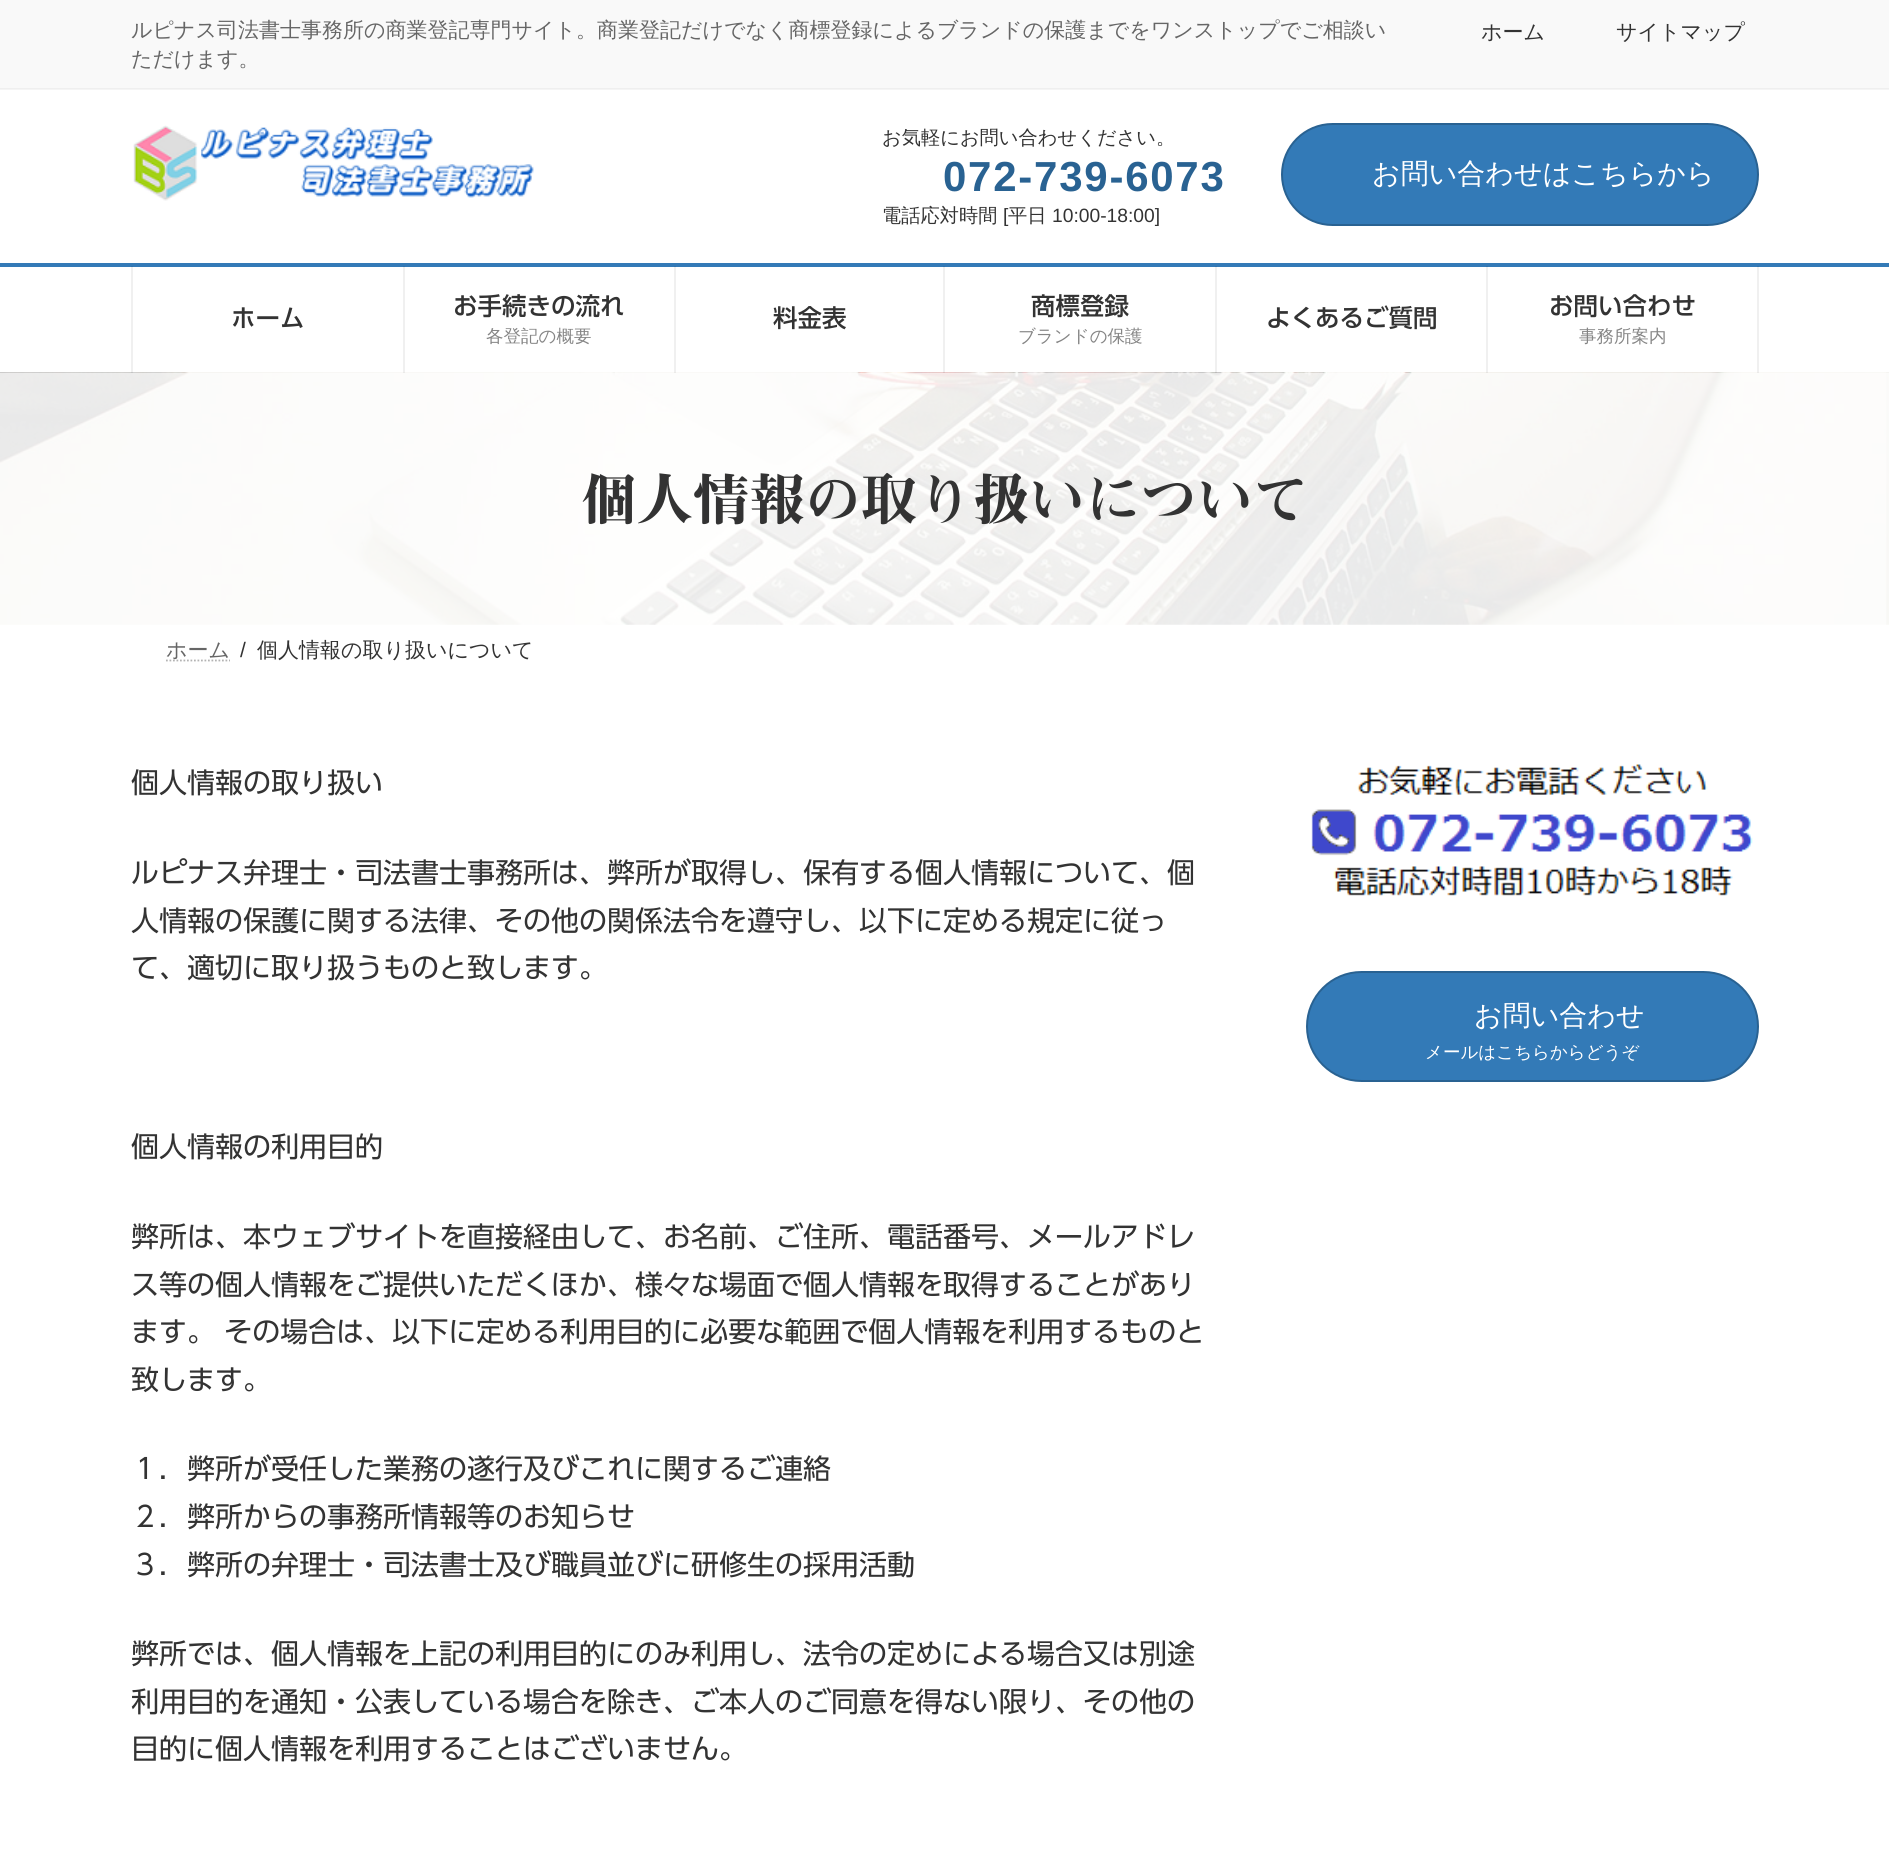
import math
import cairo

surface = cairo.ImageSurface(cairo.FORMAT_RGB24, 1889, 1851)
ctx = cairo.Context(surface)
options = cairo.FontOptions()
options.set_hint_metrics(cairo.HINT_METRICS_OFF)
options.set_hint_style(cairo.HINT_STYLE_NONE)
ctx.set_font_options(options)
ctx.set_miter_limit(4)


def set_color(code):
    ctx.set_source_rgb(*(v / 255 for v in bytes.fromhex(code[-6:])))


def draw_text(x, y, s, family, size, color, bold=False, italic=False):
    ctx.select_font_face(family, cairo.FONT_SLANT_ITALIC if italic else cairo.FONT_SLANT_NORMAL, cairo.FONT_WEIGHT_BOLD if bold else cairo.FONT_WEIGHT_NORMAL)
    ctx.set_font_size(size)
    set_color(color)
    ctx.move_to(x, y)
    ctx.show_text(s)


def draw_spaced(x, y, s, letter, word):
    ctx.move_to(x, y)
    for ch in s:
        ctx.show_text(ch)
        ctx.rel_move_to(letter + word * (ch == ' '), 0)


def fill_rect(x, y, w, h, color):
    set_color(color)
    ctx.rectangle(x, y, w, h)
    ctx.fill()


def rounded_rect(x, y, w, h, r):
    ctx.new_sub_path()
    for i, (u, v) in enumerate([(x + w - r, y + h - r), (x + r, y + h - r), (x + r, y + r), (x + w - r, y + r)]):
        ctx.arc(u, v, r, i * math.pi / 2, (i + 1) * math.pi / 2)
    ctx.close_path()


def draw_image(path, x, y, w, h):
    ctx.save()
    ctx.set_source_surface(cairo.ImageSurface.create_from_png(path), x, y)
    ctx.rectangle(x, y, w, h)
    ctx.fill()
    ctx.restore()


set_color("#ffffff")
ctx.paint()
fill_rect(0, 89, 1889, 1, "#f5f5f5")
fill_rect(0, 0, 1889, 88, "#f9f9f9")
fill_rect(0, 88, 1889, 1, "#efefef")
draw_text(131, 37, "ルピナス司法書士事務所の商業登記専門サイト。商業登記だけでなく商標登録によるブランドの保護までをワンストップでご相談い", "WenQuanYi Zen Hei Medium", 21, "#666666")
draw_text(131, 66, "ただけます。", "WenQuanYi Zen Hei Medium", 21, "#666666")
draw_text(1481, 39, "ホーム", "WenQuanYi Zen Hei Medium", 21, "#333333")
draw_text(1616, 39, "サイトマップ", "WenQuanYi Zen Hei Medium", 21, "#333333")
draw_image("assets/img1.png", 133, 125, 401, 76)
draw_text(882, 144, "お気軽にお問い合わせください。", "WenQuanYi Zen Hei Medium", 19.25, "#333333")
ctx.select_font_face("Liberation Sans", cairo.FONT_SLANT_NORMAL, cairo.FONT_WEIGHT_BOLD)
ctx.set_font_size(42)
set_color("#296292")
draw_spaced(943, 191, "072-739-6073", 1.75, 0)
draw_text(882, 222, "電話応対時間", "WenQuanYi Zen Hei Medium", 19.25, "#333333")
draw_text(1003, 222, "[", "Liberation Sans", 19.25, "#333333")
draw_text(1008, 222, "平日", "WenQuanYi Zen Hei Medium", 19.25, "#333333")
draw_text(1052, 222, "10:00-18:00]", "Liberation Sans", 19.25, "#333333")
set_color("#337ab7")
rounded_rect(1282, 124, 476, 101, 50.5)
ctx.fill_preserve()
set_color("#296292")
ctx.stroke()
draw_text(1372, 183, "お問い合わせはこちらから", "WenQuanYi Zen Hei Medium", 28, "#ffffff")
fill_rect(0, 263, 1889, 4, "#337ab7")
draw_image("assets/img2.png", 0, 372, 1889, 253)
ctx.set_source_rgba(0, 0, 0, 0.06)
ctx.rectangle(403, 266, 2, 107)
ctx.fill()
ctx.rectangle(131, 266, 2, 107)
ctx.fill()
draw_text(231, 327, "ホーム", "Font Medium", 24.5, "#333333")
ctx.set_source_rgba(0, 0, 0, 0.06)
ctx.rectangle(674, 266, 2, 107)
ctx.fill()
draw_text(453, 315, "お手続きの流れ", "Font Medium", 24.5, "#333333")
draw_text(486, 342, "各登記の概要", "WenQuanYi Zen Hei Medium", 17.5, "#858585")
ctx.set_source_rgba(0, 0, 0, 0.06)
ctx.rectangle(943, 266, 2, 107)
ctx.fill()
draw_text(773, 327, "料金表", "Font Medium", 24.5, "#333333")
ctx.set_source_rgba(0, 0, 0, 0.06)
ctx.rectangle(1215, 266, 2, 107)
ctx.fill()
draw_text(1031, 315, "商標登録", "Font Medium", 24.5, "#333333")
draw_text(1018, 342, "ブランドの保護", "WenQuanYi Zen Hei Medium", 17.5, "#858585")
ctx.set_source_rgba(0, 0, 0, 0.06)
ctx.rectangle(1486, 266, 2, 107)
ctx.fill()
draw_text(1266, 327, "よくあるご質問", "Font Medium", 24.5, "#333333")
ctx.set_source_rgba(0, 0, 0, 0.06)
ctx.rectangle(1757, 266, 2, 107)
ctx.fill()
draw_text(1549, 315, "お問い合わせ", "Font Medium", 24.5, "#333333")
draw_text(1579, 342, "事務所案内", "WenQuanYi Zen Hei Medium", 17.5, "#858585")
draw_text(581, 520, "個人情報の取り扱いについて", "Font SemiBold", 56, "#333333")
ctx.new_path()
ctx.move_to(166, 660.5)
ctx.line_to(230, 660.5)
set_color("#b3b3b3")
ctx.set_line_width(1.8)
ctx.set_dash([1.75, 1.75])
ctx.stroke()
draw_text(166, 657, "ホーム", "WenQuanYi Zen Hei Medium", 21, "#666666")
draw_text(240, 657, "/", "Liberation Sans", 21, "#333333")
draw_text(257, 657, "個人情報の取り扱いについて", "WenQuanYi Zen Hei Medium", 21, "#333333")
draw_text(131, 793, "個人情報の取り扱い", "Font", 28, "#333333")
draw_text(131, 883, "ルピナス弁理士・司法書士事務所は、弊所が取得し、保有する個人情報について、個", "Font", 28, "#333333")
draw_text(131, 931, "人情報の保護に関する法律、その他の関係法令を遵守し、以下に定める規定に従っ", "Font", 28, "#333333")
draw_text(131, 978, "て、適切に取り扱うものと致します。", "Font", 28, "#333333")
draw_text(131, 1157, "個人情報の利用目的", "Font", 28, "#333333")
draw_text(131, 1247, "弊所は、本ウェブサイトを直接経由して、お名前、ご住所、電話番号、メールアドレ", "Font", 28, "#333333")
draw_text(131, 1295, "ス等の個人情報をご提供いただくほか、様々な場面で個人情報を取得することがあり", "Font", 28, "#333333")
draw_text(131, 1342, "ます。 その場合は、以下に定める利用目的に必要な範囲で個人情報を利用するものと", "Font", 28, "#333333")
draw_text(131, 1390, "致します。", "Font", 28, "#333333")
draw_text(131, 1479, "１．弊所が受任した業務の遂行及びこれに関するご連絡", "Font", 28, "#333333")
draw_text(131, 1527, "２．弊所からの事務所情報等のお知らせ", "Font", 28, "#333333")
draw_text(131, 1575, "３．弊所の弁理士・司法書士及び職員並びに研修生の採用活動", "Font", 28, "#333333")
draw_text(131, 1664, "弊所では、個人情報を上記の利用目的にのみ利用し、法令の定めによる場合又は別途", "Font", 28, "#333333")
draw_text(131, 1712, "利用目的を通知・公表している場合を除き、ご本人のご同意を得ない限り、その他の", "Font", 28, "#333333")
draw_text(131, 1759, "目的に個人情報を利用することはございません。", "Font", 28, "#333333")
draw_image("assets/img3.png", 1311, 764, 442, 132)
set_color("#337ab7")
rounded_rect(1307, 972, 451, 109, 54.5)
ctx.fill_preserve()
set_color("#296292")
ctx.set_line_width(2)
ctx.set_dash([])
ctx.stroke()
draw_text(1474, 1025, "お問い合わせ", "WenQuanYi Zen Hei Medium", 28, "#ffffff")
draw_text(1425, 1058, "メールはこちらからどうぞ", "WenQuanYi Zen Hei Medium", 17.5, "#ffffff")
surface.write_to_png("output.png")
